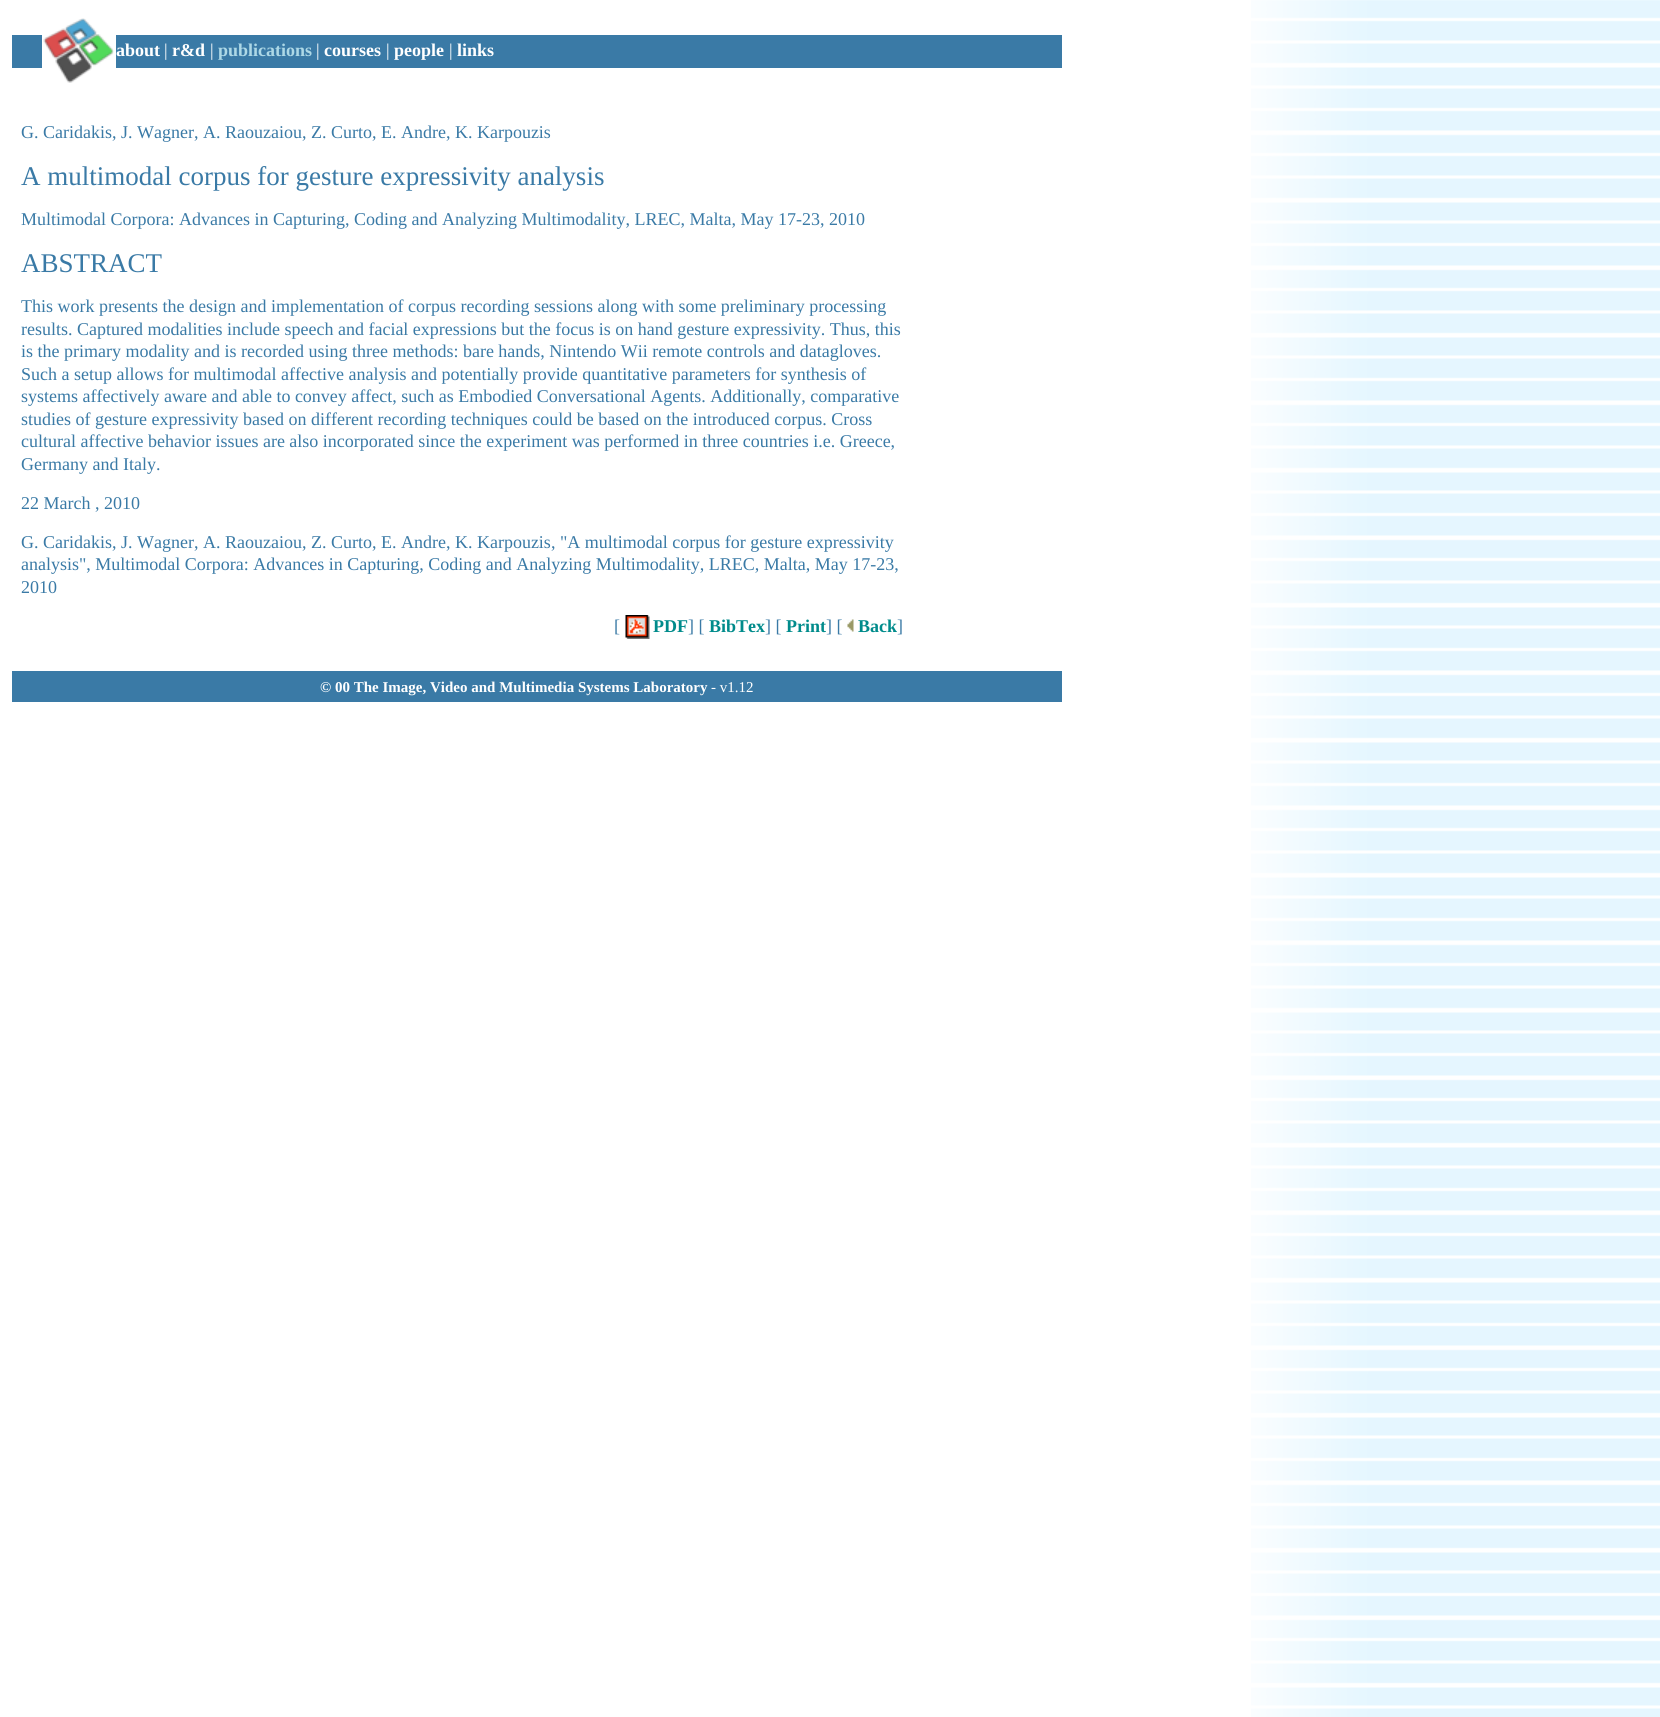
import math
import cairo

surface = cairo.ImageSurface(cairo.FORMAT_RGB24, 1660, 1717)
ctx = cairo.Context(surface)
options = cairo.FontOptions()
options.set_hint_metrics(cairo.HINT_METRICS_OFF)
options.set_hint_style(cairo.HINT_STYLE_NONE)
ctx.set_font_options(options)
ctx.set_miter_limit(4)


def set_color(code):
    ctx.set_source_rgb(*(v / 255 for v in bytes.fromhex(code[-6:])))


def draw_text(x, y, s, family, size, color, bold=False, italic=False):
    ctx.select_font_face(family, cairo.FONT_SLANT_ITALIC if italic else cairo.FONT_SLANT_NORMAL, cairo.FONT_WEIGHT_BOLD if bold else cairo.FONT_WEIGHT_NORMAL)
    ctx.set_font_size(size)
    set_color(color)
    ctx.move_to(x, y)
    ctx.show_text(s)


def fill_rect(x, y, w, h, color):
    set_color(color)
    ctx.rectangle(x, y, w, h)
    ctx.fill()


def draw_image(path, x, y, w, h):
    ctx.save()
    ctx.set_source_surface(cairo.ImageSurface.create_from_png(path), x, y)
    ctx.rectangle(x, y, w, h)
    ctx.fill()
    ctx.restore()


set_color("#ffffff")
ctx.paint()
draw_image("assets/img1.png", 1251, 0, 409, 1717)
draw_image("assets/img2.png", 43, 18, 71, 65)
fill_rect(12, 35, 30, 33, "#3a7aa6")
fill_rect(116, 35, 946, 33, "#3a7aa6")
draw_text(116, 56, "about", "Liberation Serif", 18, "#ffffff", bold=True)
draw_text(164, 56, "|", "Liberation Serif", 18, "#ffffff")
draw_text(172, 56, "r&d", "Liberation Serif", 18, "#ffffff", bold=True)
draw_text(210, 56, "|", "Liberation Serif", 18, "#ffffff")
draw_text(218, 56, "publications", "Liberation Serif", 18, "#add8e6", bold=True)
draw_text(316, 56, "|", "Liberation Serif", 18, "#ffffff")
draw_text(324, 56, "courses", "Liberation Serif", 18, "#ffffff", bold=True)
draw_text(386, 56, "|", "Liberation Serif", 18, "#ffffff")
draw_text(394, 56, "people", "Liberation Serif", 18, "#ffffff", bold=True)
draw_text(449, 56, "|", "Liberation Serif", 18, "#ffffff")
draw_text(457, 56, "links", "Liberation Serif", 18, "#ffffff", bold=True)
draw_text(21, 138, "G. Caridakis, J. Wagner, A. Raouzaiou, Z. Curto, E. Andre, K. Karpouzis", "Liberation Serif", 18, "#3a7aa6")
draw_text(21, 185, "A multimodal corpus for gesture expressivity analysis", "Liberation Serif", 27, "#3a7aa6")
draw_text(21, 225, "Multimodal Corpora: Advances in Capturing, Coding and Analyzing Multimodality, LREC, Malta, May 17-23, 2010", "Liberation Serif", 18, "#3a7aa6")
draw_text(21, 272, "ABSTRACT", "Liberation Serif", 27, "#3a7aa6")
draw_text(21, 312, "This work presents the design and implementation of corpus recording sessions along with some preliminary processing", "Liberation Serif", 18, "#3a7aa6")
draw_text(21, 335, "results. Captured modalities include speech and facial expressions but the focus is on hand gesture expressivity. Thus, this", "Liberation Serif", 18, "#3a7aa6")
draw_text(21, 357, "is the primary modality and is recorded using three methods: bare hands, Nintendo Wii remote controls and datagloves.", "Liberation Serif", 18, "#3a7aa6")
draw_text(21, 380, "Such a setup allows for multimodal affective analysis and potentially provide quantitative parameters for synthesis of", "Liberation Serif", 18, "#3a7aa6")
draw_text(21, 402, "systems affectively aware and able to convey affect, such as Embodied Conversational Agents. Additionally, comparative", "Liberation Serif", 18, "#3a7aa6")
draw_text(21, 425, "studies of gesture expressivity based on different recording techniques could be based on the introduced corpus. Cross", "Liberation Serif", 18, "#3a7aa6")
draw_text(21, 447, "cultural affective behavior issues are also incorporated since the experiment was performed in three countries i.e. Greece,", "Liberation Serif", 18, "#3a7aa6")
draw_text(21, 470, "Germany and Italy.", "Liberation Serif", 18, "#3a7aa6")
draw_text(21, 509, "22 March , 2010", "Liberation Serif", 18, "#3a7aa6")
draw_text(21, 548, "G. Caridakis, J. Wagner, A. Raouzaiou, Z. Curto, E. Andre, K. Karpouzis, \"A multimodal corpus for gesture expressivity", "Liberation Serif", 18, "#3a7aa6")
draw_text(21, 570, "analysis\", Multimodal Corpora: Advances in Capturing, Coding and Analyzing Multimodality, LREC, Malta, May 17-23,", "Liberation Serif", 18, "#3a7aa6")
draw_text(21, 593, "2010", "Liberation Serif", 18, "#3a7aa6")
draw_text(614, 632, "[", "Liberation Serif", 18, "#3a7aa6")
draw_image("assets/img3.png", 625, 615, 25, 24)
draw_text(653, 632, "PDF", "Liberation Serif", 18, "#008b8b", bold=True)
draw_text(688, 632, "] [", "Liberation Serif", 18, "#3a7aa6")
draw_text(709, 632, "BibTex", "Liberation Serif", 18, "#008b8b", bold=True)
draw_text(765, 632, "] [", "Liberation Serif", 18, "#3a7aa6")
draw_text(786, 632, "Print", "Liberation Serif", 18, "#008b8b", bold=True)
draw_text(826, 632, "] [", "Liberation Serif", 18, "#3a7aa6")
draw_image("assets/img4.png", 847, 619, 7, 13)
draw_text(858, 632, "Back", "Liberation Serif", 18, "#008b8b", bold=True)
draw_text(897, 632, "]", "Liberation Serif", 18, "#3a7aa6")
fill_rect(12, 671, 1050, 31, "#3a7aa6")
draw_text(320, 692, "© 00 The Image, Video and Multimedia Systems Laboratory", "Liberation Serif", 15, "#ffffff", bold=True)
draw_text(711, 692, "- v1.12", "Liberation Serif", 15, "#ffffff")
surface.write_to_png("output.png")
